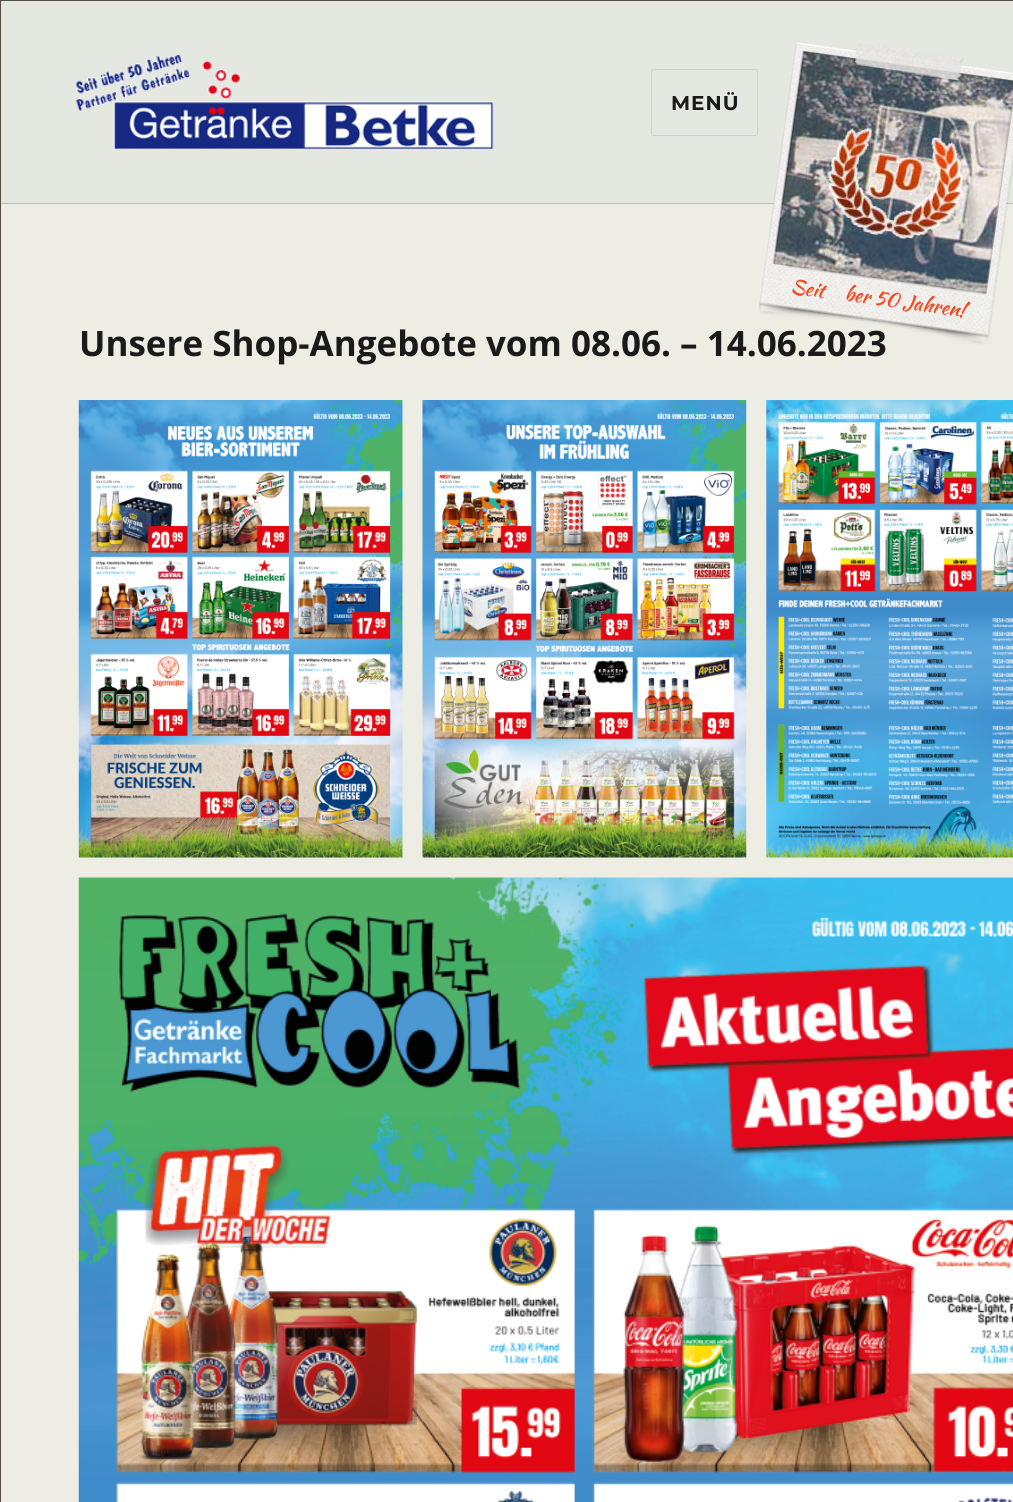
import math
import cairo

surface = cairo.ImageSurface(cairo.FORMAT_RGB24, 1013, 1502)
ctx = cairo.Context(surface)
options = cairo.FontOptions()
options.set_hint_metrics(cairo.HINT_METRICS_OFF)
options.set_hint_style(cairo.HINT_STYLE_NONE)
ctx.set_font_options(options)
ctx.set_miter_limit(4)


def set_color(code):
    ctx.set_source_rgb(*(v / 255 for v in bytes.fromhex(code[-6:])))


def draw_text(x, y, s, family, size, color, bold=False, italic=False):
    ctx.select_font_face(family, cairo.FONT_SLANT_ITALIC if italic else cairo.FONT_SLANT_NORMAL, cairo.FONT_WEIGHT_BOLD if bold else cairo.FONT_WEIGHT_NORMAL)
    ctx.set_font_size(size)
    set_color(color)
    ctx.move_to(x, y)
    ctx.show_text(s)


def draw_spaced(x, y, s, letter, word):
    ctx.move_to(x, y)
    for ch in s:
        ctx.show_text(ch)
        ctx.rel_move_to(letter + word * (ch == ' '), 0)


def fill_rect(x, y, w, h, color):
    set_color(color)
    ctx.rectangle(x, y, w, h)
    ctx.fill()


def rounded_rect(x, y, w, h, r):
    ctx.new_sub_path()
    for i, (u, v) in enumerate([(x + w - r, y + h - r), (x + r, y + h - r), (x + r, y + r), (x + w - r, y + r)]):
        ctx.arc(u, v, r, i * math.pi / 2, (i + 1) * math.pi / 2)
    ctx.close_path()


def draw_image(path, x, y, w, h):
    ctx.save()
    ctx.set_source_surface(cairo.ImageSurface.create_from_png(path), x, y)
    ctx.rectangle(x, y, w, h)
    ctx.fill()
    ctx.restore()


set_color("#edede4")
ctx.paint()
ctx.rectangle(0.5, 0.5, 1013, 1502)
set_color("#554e44")
ctx.set_line_width(1)
ctx.stroke()
fill_rect(1, 1, 1012, 202, "#e5e7e1")
fill_rect(1, 203, 1012, 1, "#afc3cf")
draw_image("assets/img1.png", 76, 55, 418, 94)
rounded_rect(651.5, 69.5, 106, 66, 2)
set_color("#d1d1d1")
ctx.stroke()
ctx.select_font_face("Montserrat", cairo.FONT_SLANT_NORMAL, cairo.FONT_WEIGHT_BOLD)
ctx.set_font_size(20)
set_color("#1a1a1a")
draw_spaced(671, 110, "MENÜ", 1, 0)
draw_image("assets/img3.png", 772, 50, 241, 246)
draw_text(79, 356, "Unsere Shop-Angebote vom 08.06. – 14.06.2023", "Open Sans", 35, "#1a1a1a", bold=True)
draw_image("assets/img2.png", 758, 42, 255, 303)
ctx.save()
ctx.translate(790, 293)
ctx.rotate(8 * math.pi / 180)
draw_text(0, 0, "Seit", "Kaushan Script", 20, "#f7481b")
ctx.restore()
ctx.save()
ctx.translate(844, 300)
ctx.rotate(8 * math.pi / 180)
draw_text(0, 0, "ber 50 Jahren!", "Kaushan Script", 20, "#f7481b")
ctx.restore()
draw_image("assets/img4.png", 78, 400, 325, 458)
draw_image("assets/img5.png", 422, 400, 325, 458)
draw_image("assets/img6.png", 766, 400, 247, 458)
draw_image("assets/img7.png", 78, 877, 935, 625)
surface.write_to_png("output.png")
